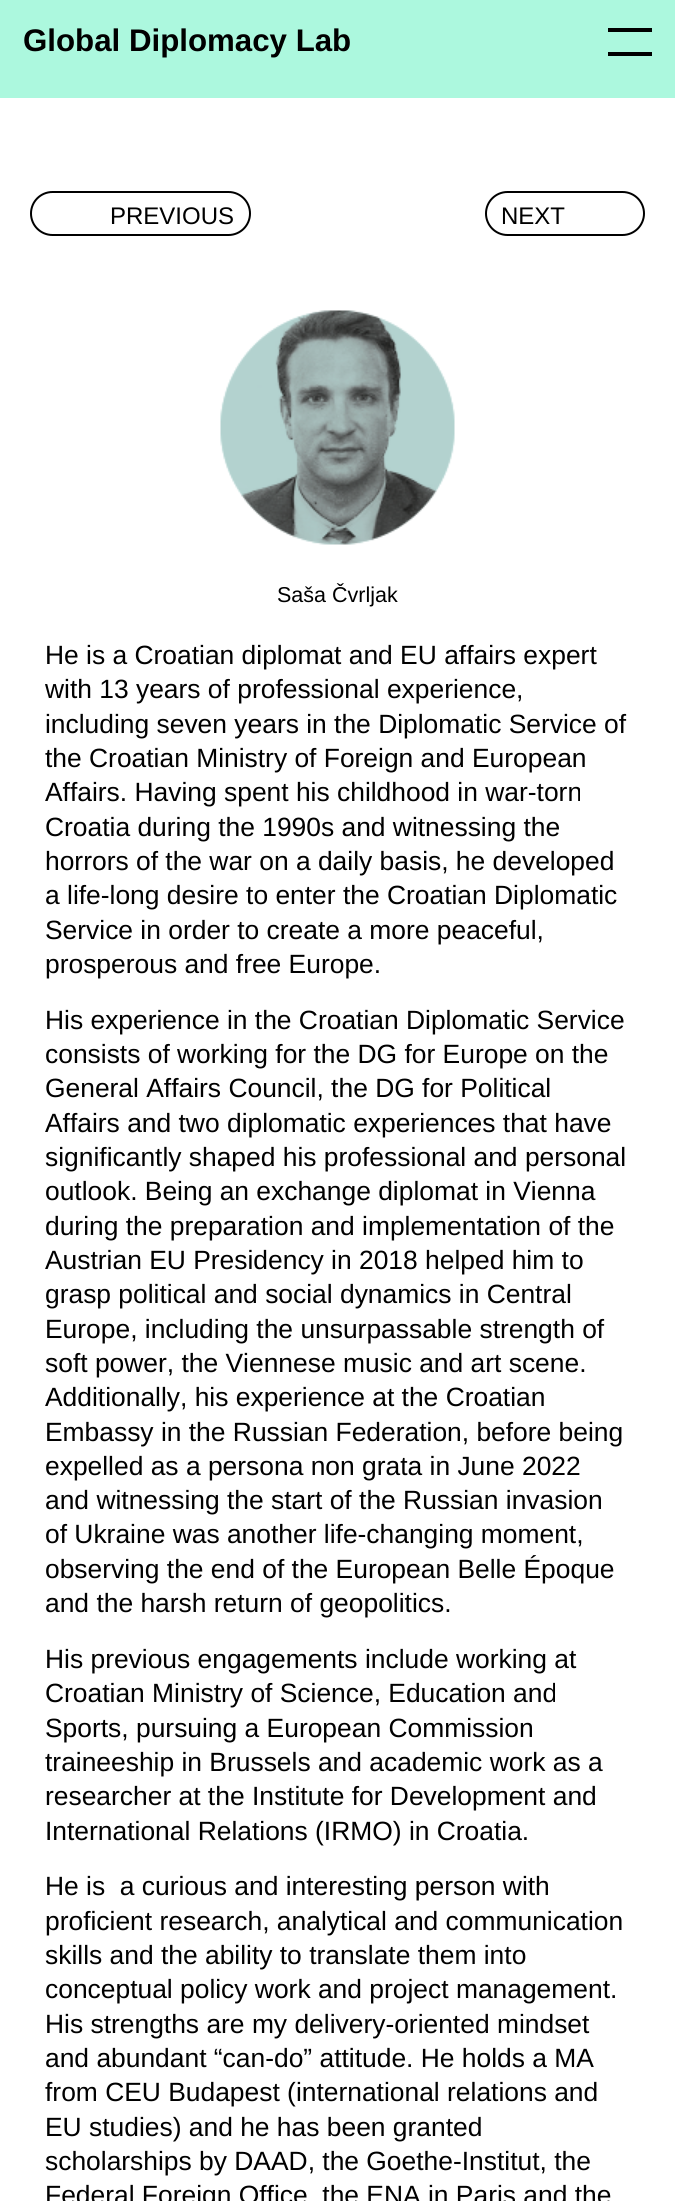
import math
import cairo

surface = cairo.ImageSurface(cairo.FORMAT_RGB24, 675, 2201)
ctx = cairo.Context(surface)
options = cairo.FontOptions()
options.set_hint_metrics(cairo.HINT_METRICS_OFF)
options.set_hint_style(cairo.HINT_STYLE_NONE)
ctx.set_font_options(options)
ctx.set_miter_limit(4)


def set_color(code):
    ctx.set_source_rgb(*(v / 255 for v in bytes.fromhex(code[-6:])))


def draw_text(x, y, s, family, size, color, bold=False, italic=False):
    ctx.select_font_face(family, cairo.FONT_SLANT_ITALIC if italic else cairo.FONT_SLANT_NORMAL, cairo.FONT_WEIGHT_BOLD if bold else cairo.FONT_WEIGHT_NORMAL)
    ctx.set_font_size(size)
    set_color(color)
    ctx.move_to(x, y)
    ctx.show_text(s)


def fill_rect(x, y, w, h, color):
    set_color(color)
    ctx.rectangle(x, y, w, h)
    ctx.fill()


def rounded_rect(x, y, w, h, r):
    ctx.new_sub_path()
    for i, (u, v) in enumerate([(x + w - r, y + h - r), (x + r, y + h - r), (x + r, y + r), (x + w - r, y + r)]):
        ctx.arc(u, v, r, i * math.pi / 2, (i + 1) * math.pi / 2)
    ctx.close_path()


def draw_image(path, x, y, w, h):
    ctx.save()
    ctx.set_source_surface(cairo.ImageSurface.create_from_png(path), x, y)
    ctx.rectangle(x, y, w, h)
    ctx.fill()
    ctx.restore()


set_color("#ffffff")
ctx.paint()
fill_rect(0, 0, 675, 98, "#acf8de")
draw_text(23, 51, "Global Diplomacy Lab", "Liberation Sans", 31.25, "#000000", bold=True)
fill_rect(608, 28, 44, 4, "#000000")
fill_rect(608, 52, 44, 4, "#000000")
rounded_rect(31, 192, 219, 43, 21.5)
ctx.stroke()
draw_text(110, 224, "PREVIOUS", "Liberation Sans", 24, "#000000")
rounded_rect(486, 192, 158, 43, 21.5)
ctx.stroke()
draw_text(501, 224, "NEXT", "Liberation Sans", 24, "#000000")
draw_image("assets/img1.png", 220, 310, 235, 235)
draw_text(277, 602, "Saša Čvrljak", "Liberation Sans", 21.5, "#000000")
draw_text(45, 664, "He is a Croatian diplomat and EU affairs expert", "Liberation Sans", 26.4, "#000000")
draw_text(45, 698, "with 13 years of professional experience,", "Liberation Sans", 26.4, "#000000")
draw_text(45, 733, "including seven years in the Diplomatic Service of", "Liberation Sans", 26.4, "#000000")
draw_text(45, 767, "the Croatian Ministry of Foreign and European", "Liberation Sans", 26.4, "#000000")
draw_text(45, 801, "Affairs. Having spent his childhood in war-torn", "Liberation Sans", 26.4, "#000000")
draw_text(45, 836, "Croatia during the 1990s and witnessing the", "Liberation Sans", 26.4, "#000000")
draw_text(45, 870, "horrors of the war on a daily basis, he developed", "Liberation Sans", 26.4, "#000000")
draw_text(45, 904, "a life-long desire to enter the Croatian Diplomatic", "Liberation Sans", 26.4, "#000000")
draw_text(45, 939, "Service in order to create a more peaceful,", "Liberation Sans", 26.4, "#000000")
draw_text(45, 973, "prosperous and free Europe.", "Liberation Sans", 26.4, "#000000")
draw_text(45, 1029, "His experience in the Croatian Diplomatic Service", "Liberation Sans", 26.4, "#000000")
draw_text(45, 1063, "consists of working for the DG for Europe on the", "Liberation Sans", 26.4, "#000000")
draw_text(45, 1097, "General Affairs Council, the DG for Political", "Liberation Sans", 26.4, "#000000")
draw_text(45, 1132, "Affairs and two diplomatic experiences that have", "Liberation Sans", 26.4, "#000000")
draw_text(45, 1166, "significantly shaped his professional and personal", "Liberation Sans", 26.4, "#000000")
draw_text(45, 1200, "outlook. Being an exchange diplomat in Vienna", "Liberation Sans", 26.4, "#000000")
draw_text(45, 1235, "during the preparation and implementation of the", "Liberation Sans", 26.4, "#000000")
draw_text(45, 1269, "Austrian EU Presidency in 2018 helped him to", "Liberation Sans", 26.4, "#000000")
draw_text(45, 1303, "grasp political and social dynamics in Central", "Liberation Sans", 26.4, "#000000")
draw_text(45, 1338, "Europe, including the unsurpassable strength of", "Liberation Sans", 26.4, "#000000")
draw_text(45, 1372, "soft power, the Viennese music and art scene.", "Liberation Sans", 26.4, "#000000")
draw_text(45, 1406, "Additionally, his experience at the Croatian", "Liberation Sans", 26.4, "#000000")
draw_text(45, 1441, "Embassy in the Russian Federation, before being", "Liberation Sans", 26.4, "#000000")
draw_text(45, 1475, "expelled as a persona non grata in June 2022", "Liberation Sans", 26.4, "#000000")
draw_text(45, 1509, "and witnessing the start of the Russian invasion", "Liberation Sans", 26.4, "#000000")
draw_text(45, 1543, "of Ukraine was another life-changing moment,", "Liberation Sans", 26.4, "#000000")
draw_text(45, 1578, "observing the end of the European Belle Époque", "Liberation Sans", 26.4, "#000000")
draw_text(45, 1612, "and the harsh return of geopolitics.", "Liberation Sans", 26.4, "#000000")
draw_text(45, 1668, "His previous engagements include working at", "Liberation Sans", 26.4, "#000000")
draw_text(45, 1702, "Croatian Ministry of Science, Education and", "Liberation Sans", 26.4, "#000000")
draw_text(45, 1737, "Sports, pursuing a European Commission", "Liberation Sans", 26.4, "#000000")
draw_text(45, 1771, "traineeship in Brussels and academic work as a", "Liberation Sans", 26.4, "#000000")
draw_text(45, 1805, "researcher at the Institute for Development and", "Liberation Sans", 26.4, "#000000")
draw_text(45, 1840, "International Relations (IRMO) in Croatia.", "Liberation Sans", 26.4, "#000000")
draw_text(45, 1895, "He is  a curious and interesting person with", "Liberation Sans", 26.4, "#000000")
draw_text(45, 1930, "proficient research, analytical and communication", "Liberation Sans", 26.4, "#000000")
draw_text(45, 1964, "skills and the ability to translate them into", "Liberation Sans", 26.4, "#000000")
draw_text(45, 1998, "conceptual policy work and project management.", "Liberation Sans", 26.4, "#000000")
draw_text(45, 2033, "His strengths are my delivery-oriented mindset", "Liberation Sans", 26.4, "#000000")
draw_text(45, 2067, "and abundant “can-do” attitude. He holds a MA", "Liberation Sans", 26.4, "#000000")
draw_text(45, 2101, "from CEU Budapest (international relations and", "Liberation Sans", 26.4, "#000000")
draw_text(45, 2136, "EU studies) and he has been granted", "Liberation Sans", 26.4, "#000000")
draw_text(45, 2170, "scholarships by DAAD, the Goethe-Institut, the", "Liberation Sans", 26.4, "#000000")
draw_text(45, 2204, "Federal Foreign Office, the ENA in Paris and the", "Liberation Sans", 26.4, "#000000")
surface.write_to_png("output.png")
